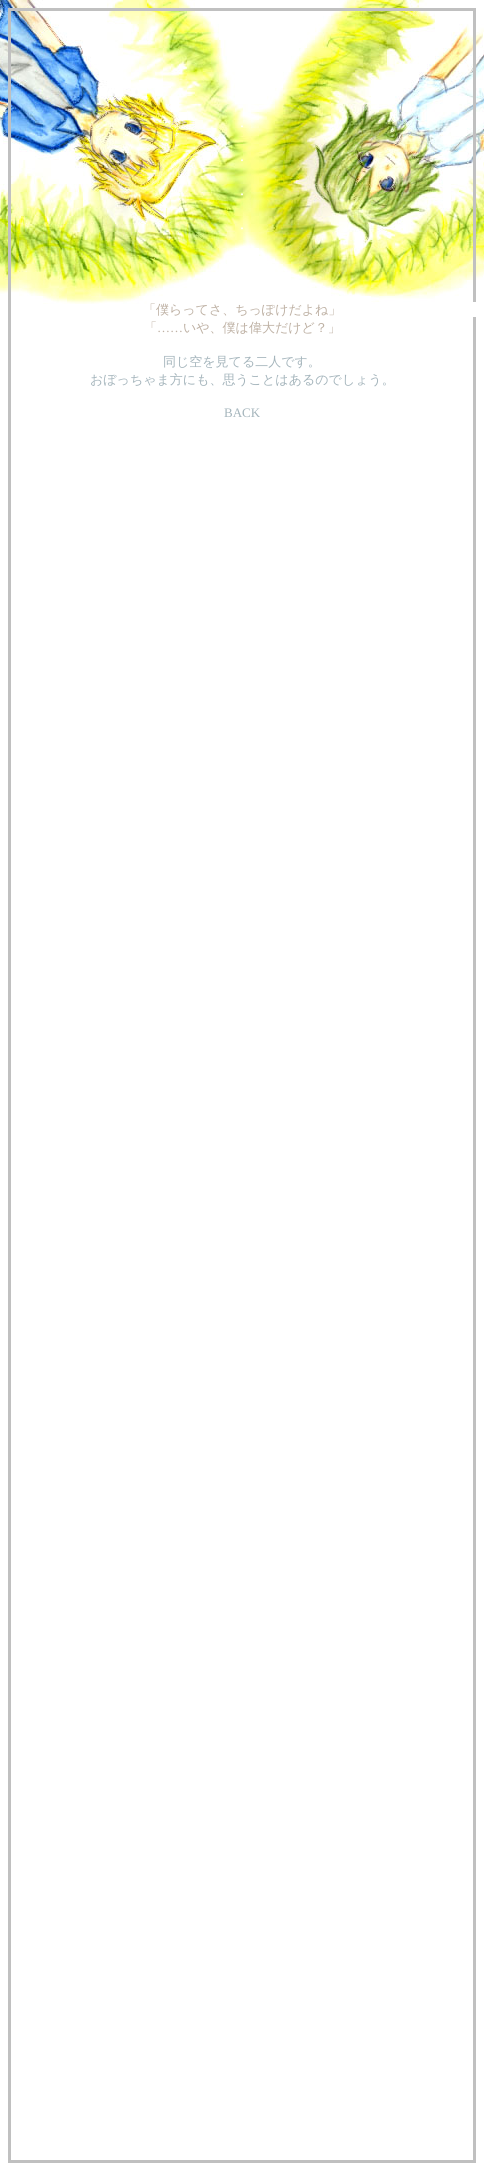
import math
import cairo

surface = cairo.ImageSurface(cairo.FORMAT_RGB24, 484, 2171)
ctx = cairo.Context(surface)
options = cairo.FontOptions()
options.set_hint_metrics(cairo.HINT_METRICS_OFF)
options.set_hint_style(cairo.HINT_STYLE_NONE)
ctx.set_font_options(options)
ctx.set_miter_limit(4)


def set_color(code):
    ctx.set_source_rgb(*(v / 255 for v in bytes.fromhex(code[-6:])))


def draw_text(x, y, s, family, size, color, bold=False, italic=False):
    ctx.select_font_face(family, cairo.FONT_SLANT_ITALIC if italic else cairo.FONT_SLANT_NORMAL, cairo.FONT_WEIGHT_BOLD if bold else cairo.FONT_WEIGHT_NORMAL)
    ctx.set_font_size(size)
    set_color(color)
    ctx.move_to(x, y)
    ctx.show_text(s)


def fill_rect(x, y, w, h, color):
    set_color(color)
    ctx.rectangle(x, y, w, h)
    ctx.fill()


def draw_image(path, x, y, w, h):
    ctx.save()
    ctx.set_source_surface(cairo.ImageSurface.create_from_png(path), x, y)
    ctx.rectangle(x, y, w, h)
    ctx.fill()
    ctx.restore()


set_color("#ffffff")
ctx.paint()
draw_image("assets/img1.png", 0, 0, 484, 304)
ctx.rectangle(9.5, 9.5, 465, 2152)
set_color("#c0c0c0")
ctx.set_line_width(3)
ctx.stroke()
draw_text(240, 127, ".", "Liberation Serif", 16, "#ffffff")
draw_text(240, 161, ".", "Liberation Serif", 16, "#ffffff")
draw_text(240, 195, ".", "Liberation Serif", 16, "#ffffff")
draw_text(240, 229, ".", "Liberation Serif", 16, "#ffffff")
draw_text(143, 314, "「僕らってさ、ちっぽけだよね」", "WenQuanYi Zen Hei Medium", 13, "#beb1a4")
fill_rect(375, 302, 101, 15, "#ffffff")
draw_text(144, 332, "「", "WenQuanYi Zen Hei Medium", 13, "#beb1a4")
draw_text(157, 332, "……", "Liberation Serif", 13, "#beb1a4")
draw_text(183, 332, "いや、僕は偉大だけど？」", "WenQuanYi Zen Hei Medium", 13, "#beb1a4")
draw_text(163, 366, "同じ空を見てる二人です。", "WenQuanYi Zen Hei Medium", 13, "#a5b5bc")
draw_text(90, 384, "おぼっちゃま方にも、思うことはあるのでしょう。", "WenQuanYi Zen Hei Medium", 13, "#a5b5bc")
draw_text(224, 417, "BACK", "Liberation Serif", 13, "#a5b5bc")
surface.write_to_png("output.png")
